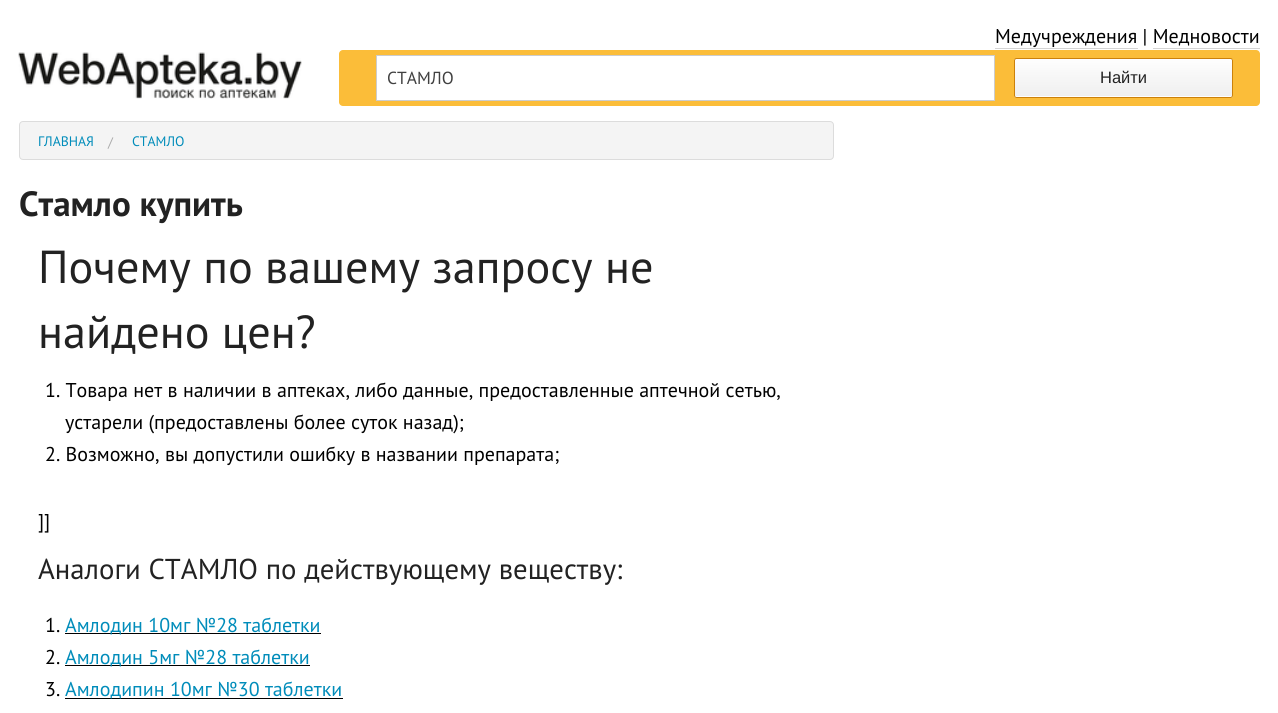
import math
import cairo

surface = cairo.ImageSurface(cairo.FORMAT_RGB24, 1278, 713)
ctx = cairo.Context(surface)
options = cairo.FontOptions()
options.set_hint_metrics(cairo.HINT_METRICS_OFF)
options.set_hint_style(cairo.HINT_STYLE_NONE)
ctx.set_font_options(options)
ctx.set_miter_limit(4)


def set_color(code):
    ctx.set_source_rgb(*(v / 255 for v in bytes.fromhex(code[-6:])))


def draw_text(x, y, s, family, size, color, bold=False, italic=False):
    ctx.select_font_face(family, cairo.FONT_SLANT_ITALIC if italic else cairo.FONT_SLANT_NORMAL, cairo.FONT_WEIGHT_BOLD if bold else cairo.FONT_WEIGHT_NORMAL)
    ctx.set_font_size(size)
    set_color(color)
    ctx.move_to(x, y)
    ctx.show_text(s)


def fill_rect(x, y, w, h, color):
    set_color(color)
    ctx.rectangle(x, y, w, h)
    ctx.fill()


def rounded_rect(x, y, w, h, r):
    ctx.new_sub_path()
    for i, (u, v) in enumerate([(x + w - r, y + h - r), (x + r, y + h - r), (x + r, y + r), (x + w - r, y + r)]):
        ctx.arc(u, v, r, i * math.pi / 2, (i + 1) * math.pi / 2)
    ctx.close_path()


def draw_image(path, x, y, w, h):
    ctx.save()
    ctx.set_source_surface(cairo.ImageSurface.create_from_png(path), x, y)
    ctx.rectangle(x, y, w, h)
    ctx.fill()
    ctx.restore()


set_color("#ffffff")
ctx.paint()
draw_text(995, 43, "Медучреждения | Медновости", "PT Sans", 20, "#000000")
fill_rect(995, 48, 143, 1, "#d4d4d4")
fill_rect(1153, 48, 107, 1, "#d4d4d4")
draw_image("assets/img1.png", 18, 52, 284, 47)
set_color("#fbbd39")
rounded_rect(339, 50, 921, 56, 4)
ctx.fill()
set_color("#ffffff")
ctx.rectangle(376.5, 55.5, 618, 45)
ctx.fill_preserve()
set_color("#cccccc")
ctx.set_line_width(1)
ctx.stroke()
draw_text(387, 84, "СТАМЛО", "PT Sans", 17.5, "#404040")
gradient = cairo.LinearGradient(1123, 59, 1123, 96)
gradient.add_color_stop_rgba(0, 0.996, 0.996, 0.996, 1)
gradient.add_color_stop_rgba(1, 0.937, 0.937, 0.937, 1)
ctx.set_source(gradient)
ctx.rectangle(1014, 59, 219, 37)
ctx.fill()
ctx.save()
rounded_rect(1014, 58, 219, 40, 2.5)
ctx.clip()
gradient = cairo.LinearGradient(1123, 96, 1123, 134)
gradient.add_color_stop_rgba(0, 0.996, 0.996, 0.996, 1)
gradient.add_color_stop_rgba(1, 0.937, 0.937, 0.937, 1)
ctx.set_source(gradient)
ctx.rectangle(1014, 96, 219, 2)
ctx.fill()
ctx.restore()
rounded_rect(1014.5, 58.5, 218, 39, 2)
set_color("#cc810a")
ctx.stroke()
draw_text(1100, 83, "Найти", "Liberation Sans", 16.5, "#222222")
set_color("#f4f4f4")
rounded_rect(19.5, 121.5, 814, 38, 3.5)
ctx.fill_preserve()
set_color("#dcdcdc")
ctx.stroke()
draw_text(38, 146, "ГЛАВНАЯ", "PT Sans", 13.75, "#008cba")
draw_text(108, 147, "/", "PT Sans", 13.75, "#aaaaaa")
draw_text(132, 146, "СТАМЛО", "PT Sans", 13.75, "#008cba")
draw_text(19, 216, "Стамло купить", "PT Sans", 35, "#222222", bold=True)
draw_text(38, 283, "Почему по вашему запросу не", "PT Sans", 46.25, "#222222")
draw_text(38, 348, "найдено цен?", "PT Sans", 46.25, "#222222")
draw_text(45, 397, "1. Товара нет в наличии в аптеках, либо данные, предоставленные аптечной сетью,", "PT Sans", 20, "#000000")
draw_text(65, 429, "устарели (предоставлены более суток назад);", "PT Sans", 20, "#000000")
draw_text(45, 461, "2. Возможно, вы допустили ошибку в названии препарата;", "PT Sans", 20, "#000000")
draw_text(38, 528, "]]", "PT Sans", 20, "#000000")
draw_text(38, 579, "Аналоги СТАМЛО по действующему веществу:", "PT Sans", 28.75, "#222222")
draw_text(45, 632, "1.", "PT Sans", 20, "#000000")
fill_rect(65, 633, 256, 1, "#000000")
draw_text(65, 632, "Амлодин 10мг №28 таблетки", "PT Sans", 20, "#008cba")
draw_text(45, 664, "2.", "PT Sans", 20, "#000000")
fill_rect(65, 665, 245, 1, "#000000")
draw_text(65, 664, "Амлодин 5мг №28 таблетки", "PT Sans", 20, "#008cba")
draw_text(45, 696, "3.", "PT Sans", 20, "#000000")
fill_rect(65, 698, 278, 1, "#000000")
draw_text(65, 696, "Амлодипин 10мг №30 таблетки", "PT Sans", 20, "#008cba")
surface.write_to_png("output.png")
